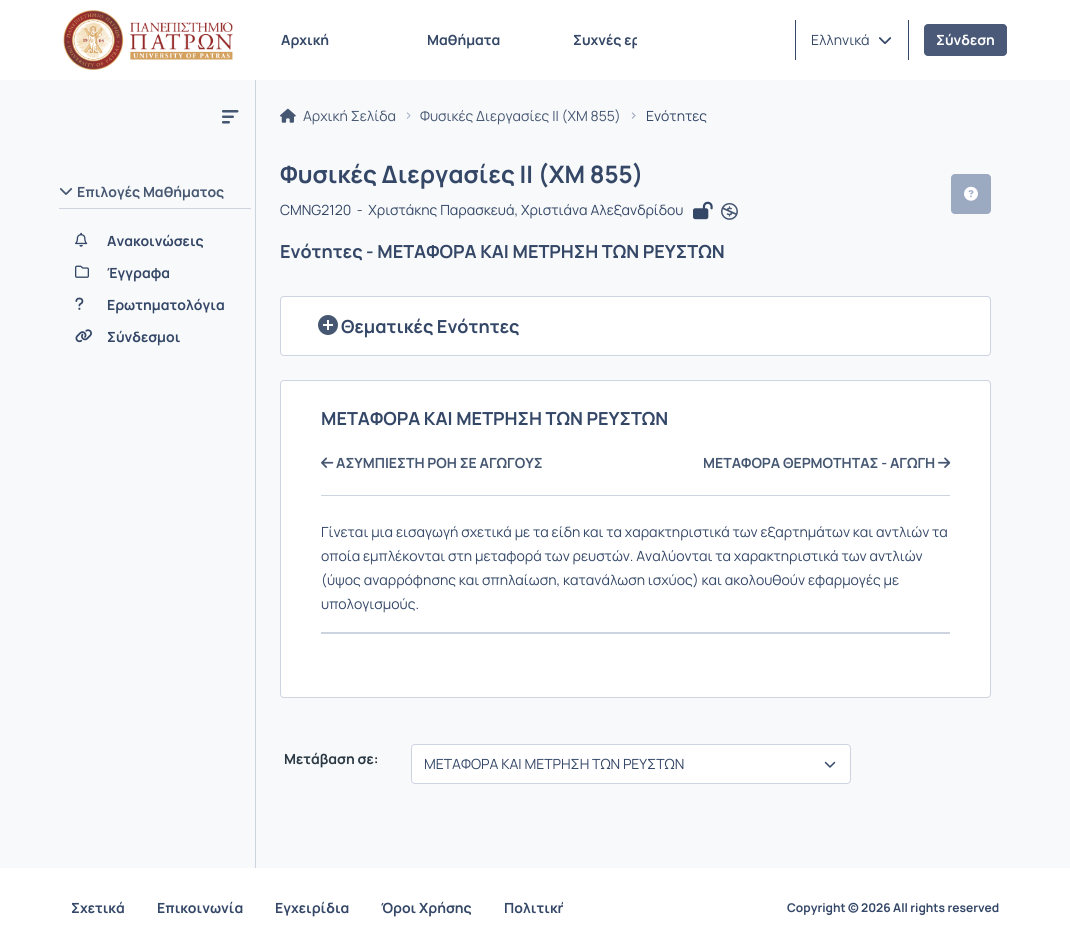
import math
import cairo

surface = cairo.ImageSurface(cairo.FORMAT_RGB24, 1070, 948)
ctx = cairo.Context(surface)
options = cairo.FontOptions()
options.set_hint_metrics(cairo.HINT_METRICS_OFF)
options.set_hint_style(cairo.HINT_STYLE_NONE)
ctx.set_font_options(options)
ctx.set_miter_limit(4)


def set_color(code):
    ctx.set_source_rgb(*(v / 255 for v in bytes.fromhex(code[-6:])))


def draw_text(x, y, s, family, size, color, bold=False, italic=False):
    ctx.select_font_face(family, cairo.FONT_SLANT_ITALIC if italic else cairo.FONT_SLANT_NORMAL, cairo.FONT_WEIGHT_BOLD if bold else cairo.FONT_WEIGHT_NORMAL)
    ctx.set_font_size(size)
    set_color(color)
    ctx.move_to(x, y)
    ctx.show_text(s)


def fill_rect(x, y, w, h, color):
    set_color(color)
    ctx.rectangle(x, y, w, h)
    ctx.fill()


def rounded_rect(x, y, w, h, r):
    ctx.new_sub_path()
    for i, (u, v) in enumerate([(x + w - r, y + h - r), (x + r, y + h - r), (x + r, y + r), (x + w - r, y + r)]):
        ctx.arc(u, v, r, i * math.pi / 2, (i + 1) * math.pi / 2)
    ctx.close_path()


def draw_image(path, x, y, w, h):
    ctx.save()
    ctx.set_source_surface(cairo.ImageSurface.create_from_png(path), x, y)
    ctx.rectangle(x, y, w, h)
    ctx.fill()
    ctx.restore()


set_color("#f8f9fa")
ctx.paint()
fill_rect(0, 0, 1070, 80, "#ffffff")
draw_image("assets/img1.png", 63, 10, 170, 60)
draw_text(281, 45, "Αρχική", "Manrope", 14, "#344767", bold=True)
draw_text(427, 45, "Μαθήματα", "Manrope", 14, "#344767", bold=True)
ctx.save()
ctx.rectangle(257, 24, 380, 32)
ctx.clip()
draw_text(573, 45, "Συχνές ερ", "Manrope", 14, "#344767", bold=True)
ctx.restore()
fill_rect(795, 20, 1, 40, "#344767")
draw_text(811, 45, "Ελληνικά", "Manrope", 14, "#344767")
draw_image("assets/img2.png", 879, 37, 12, 7)
fill_rect(908, 20, 1, 40, "#344767")
set_color("#4a5978")
rounded_rect(924, 24, 83, 32, 4)
ctx.fill()
draw_text(936, 45, "Σύνδεση", "Manrope", 14, "#ffffff", bold=True)
draw_image("assets/img3.png", 222, 110, 17, 14)
fill_rect(59, 208, 192, 1, "#cdd4e0")
draw_image("assets/img4.png", 59, 188, 14, 7)
draw_text(77, 197, "Επιλογές Μαθήματος", "Manrope", 14, "#465772", bold=True)
draw_image("assets/img5.png", 75, 232, 13, 15)
draw_text(107, 246, "Ανακοινώσεις", "Manrope", 14, "#344767", bold=True)
draw_image("assets/img6.png", 75, 265, 14, 13)
draw_text(107, 278, "Έγγραφα", "Manrope", 14, "#344767", bold=True)
draw_image("assets/img7.png", 75, 297, 9, 13)
draw_text(107, 310, "Ερωτηματολόγια", "Manrope", 14, "#344767", bold=True)
draw_image("assets/img8.png", 75, 329, 17, 14)
draw_text(107, 342, "Σύνδεσμοι", "Manrope", 14, "#344767", bold=True)
fill_rect(255, 80, 1, 788, "#cdd4e0")
draw_image("assets/img9.png", 280, 108, 16, 15)
draw_text(303, 121, "Αρχική Σελίδα", "Manrope", 14, "#465772")
draw_text(404, 120, ">", "Manrope", 14, "#9ba9c1")
draw_text(420, 121, "Φυσικές Διεργασίες ΙΙ (ΧΜ 855)", "Manrope", 14, "#465772")
draw_text(629, 120, ">", "Manrope Medium", 14, "#9ba9c1")
draw_text(646, 121, "Ενότητες", "Manrope", 14, "#344767")
draw_text(280, 183, "Φυσικές Διεργασίες ΙΙ (ΧΜ 855)", "Manrope", 24, "#344767", bold=True)
draw_text(280, 215, "CMNG2120  -  Χριστάκης Παρασκευά, Χριστιάνα Αλεξανδρίδου", "Manrope", 14, "#344767")
draw_image("assets/img10.png", 693, 201, 20, 19)
draw_image("assets/img11.png", 721, 203, 17, 17)
draw_text(280, 258, "Ενότητες - METAΦΟΡΑ ΚΑΙ ΜΕΤΡΗΣΗ ΤΩΝ ΡΕΥΣΤΩΝ", "Manrope", 18, "#344767", bold=True)
set_color("#9ba9c1")
rounded_rect(951.5, 174.5, 39, 39, 3.5)
ctx.fill_preserve()
ctx.set_line_width(1)
ctx.stroke()
draw_image("assets/img12.png", 964, 186, 14, 15)
set_color("#ffffff")
rounded_rect(280.5, 296.5, 710, 59, 3.5)
ctx.fill_preserve()
set_color("#cdd4e0")
ctx.stroke()
set_color("#465772")
ctx.arc(328, 325, 10, 0, 2 * math.pi)
ctx.fill()
draw_image("assets/img13.png", 323, 320, 10, 10)
draw_text(341, 333, "Θεματικές Ενότητες", "Manrope", 18, "#344767", bold=True)
set_color("#ffffff")
rounded_rect(280.5, 380.5, 710, 317, 3.5)
ctx.fill_preserve()
set_color("#cdd4e0")
ctx.stroke()
draw_text(321, 425, "METAΦΟΡΑ ΚΑΙ ΜΕΤΡΗΣΗ ΤΩΝ ΡΕΥΣΤΩΝ", "Manrope", 18, "#344767", bold=True)
fill_rect(321, 495, 629, 1, "#cdd4e0")
draw_image("assets/img14.png", 321, 457, 13, 11)
draw_text(336, 468, "ΑΣΥΜΠΙΕΣΤΗ ΡΟΗ ΣΕ ΑΓΩΓΟΥΣ", "Manrope", 14, "#465772", bold=True)
draw_text(703, 468, "ΜΕΤΑΦΟΡΑ ΘΕΡΜΟΤΗΤΑΣ - ΑΓΩΓΗ", "Manrope", 14, "#465772", bold=True)
draw_image("assets/img15.png", 938, 457, 13, 11)
draw_text(321, 537, "Γίνεται μια εισαγωγή σχετικά με τα είδη και τα χαρακτηριστικά των εξαρτημάτων και αντλιών τα", "Manrope", 14, "#344767")
draw_text(321, 561, "οποία εμπλέκονται στη μεταφορά των ρευστών. Αναλύονται τα χαρακτηριστικά των αντλιών", "Manrope", 14, "#344767")
draw_text(321, 585, "(ύψος αναρρόφησης και σπηλαίωση, κατανάλωση ισχύος) και ακολουθούν εφαρμογές με", "Manrope", 14, "#344767")
draw_text(321, 609, "υπολογισμούς.", "Manrope", 14, "#344767")
fill_rect(321, 632, 629, 2, "#cdd4e0")
draw_text(284, 764, "Μετάβαση σε:", "Manrope", 14, "#2b3944", bold=True)
set_color("#ffffff")
rounded_rect(411, 744, 440, 40, 4)
ctx.fill()
draw_image("assets/img16.png", 824, 761, 12, 7)
rounded_rect(411.5, 744.5, 439, 39, 3.5)
set_color("#cdd4e0")
ctx.stroke()
draw_text(424, 769, "METAΦΟΡΑ ΚΑΙ ΜΕΤΡΗΣΗ ΤΩΝ ΡΕΥΣΤΩΝ", "Manrope", 14, "#344767")
fill_rect(0, 868, 1070, 80, "#ffffff")
draw_text(71, 913, "Σχετικά", "Manrope", 14, "#344767", bold=True)
draw_text(157, 913, "Επικοινωνία", "Manrope", 14, "#344767", bold=True)
draw_text(275, 913, "Εγχειρίδια", "Manrope", 14, "#344767", bold=True)
draw_text(381, 913, "Όροι Χρήσης", "Manrope", 14, "#344767", bold=True)
ctx.save()
ctx.rectangle(63, 892, 500, 32)
ctx.clip()
draw_text(504, 913, "Πολιτική", "Manrope", 14, "#344767", bold=True)
ctx.restore()
draw_text(787, 912, "Copyright © 2026 All rights reserved", "Manrope", 12, "#344767", bold=True)
surface.write_to_png("output.png")
